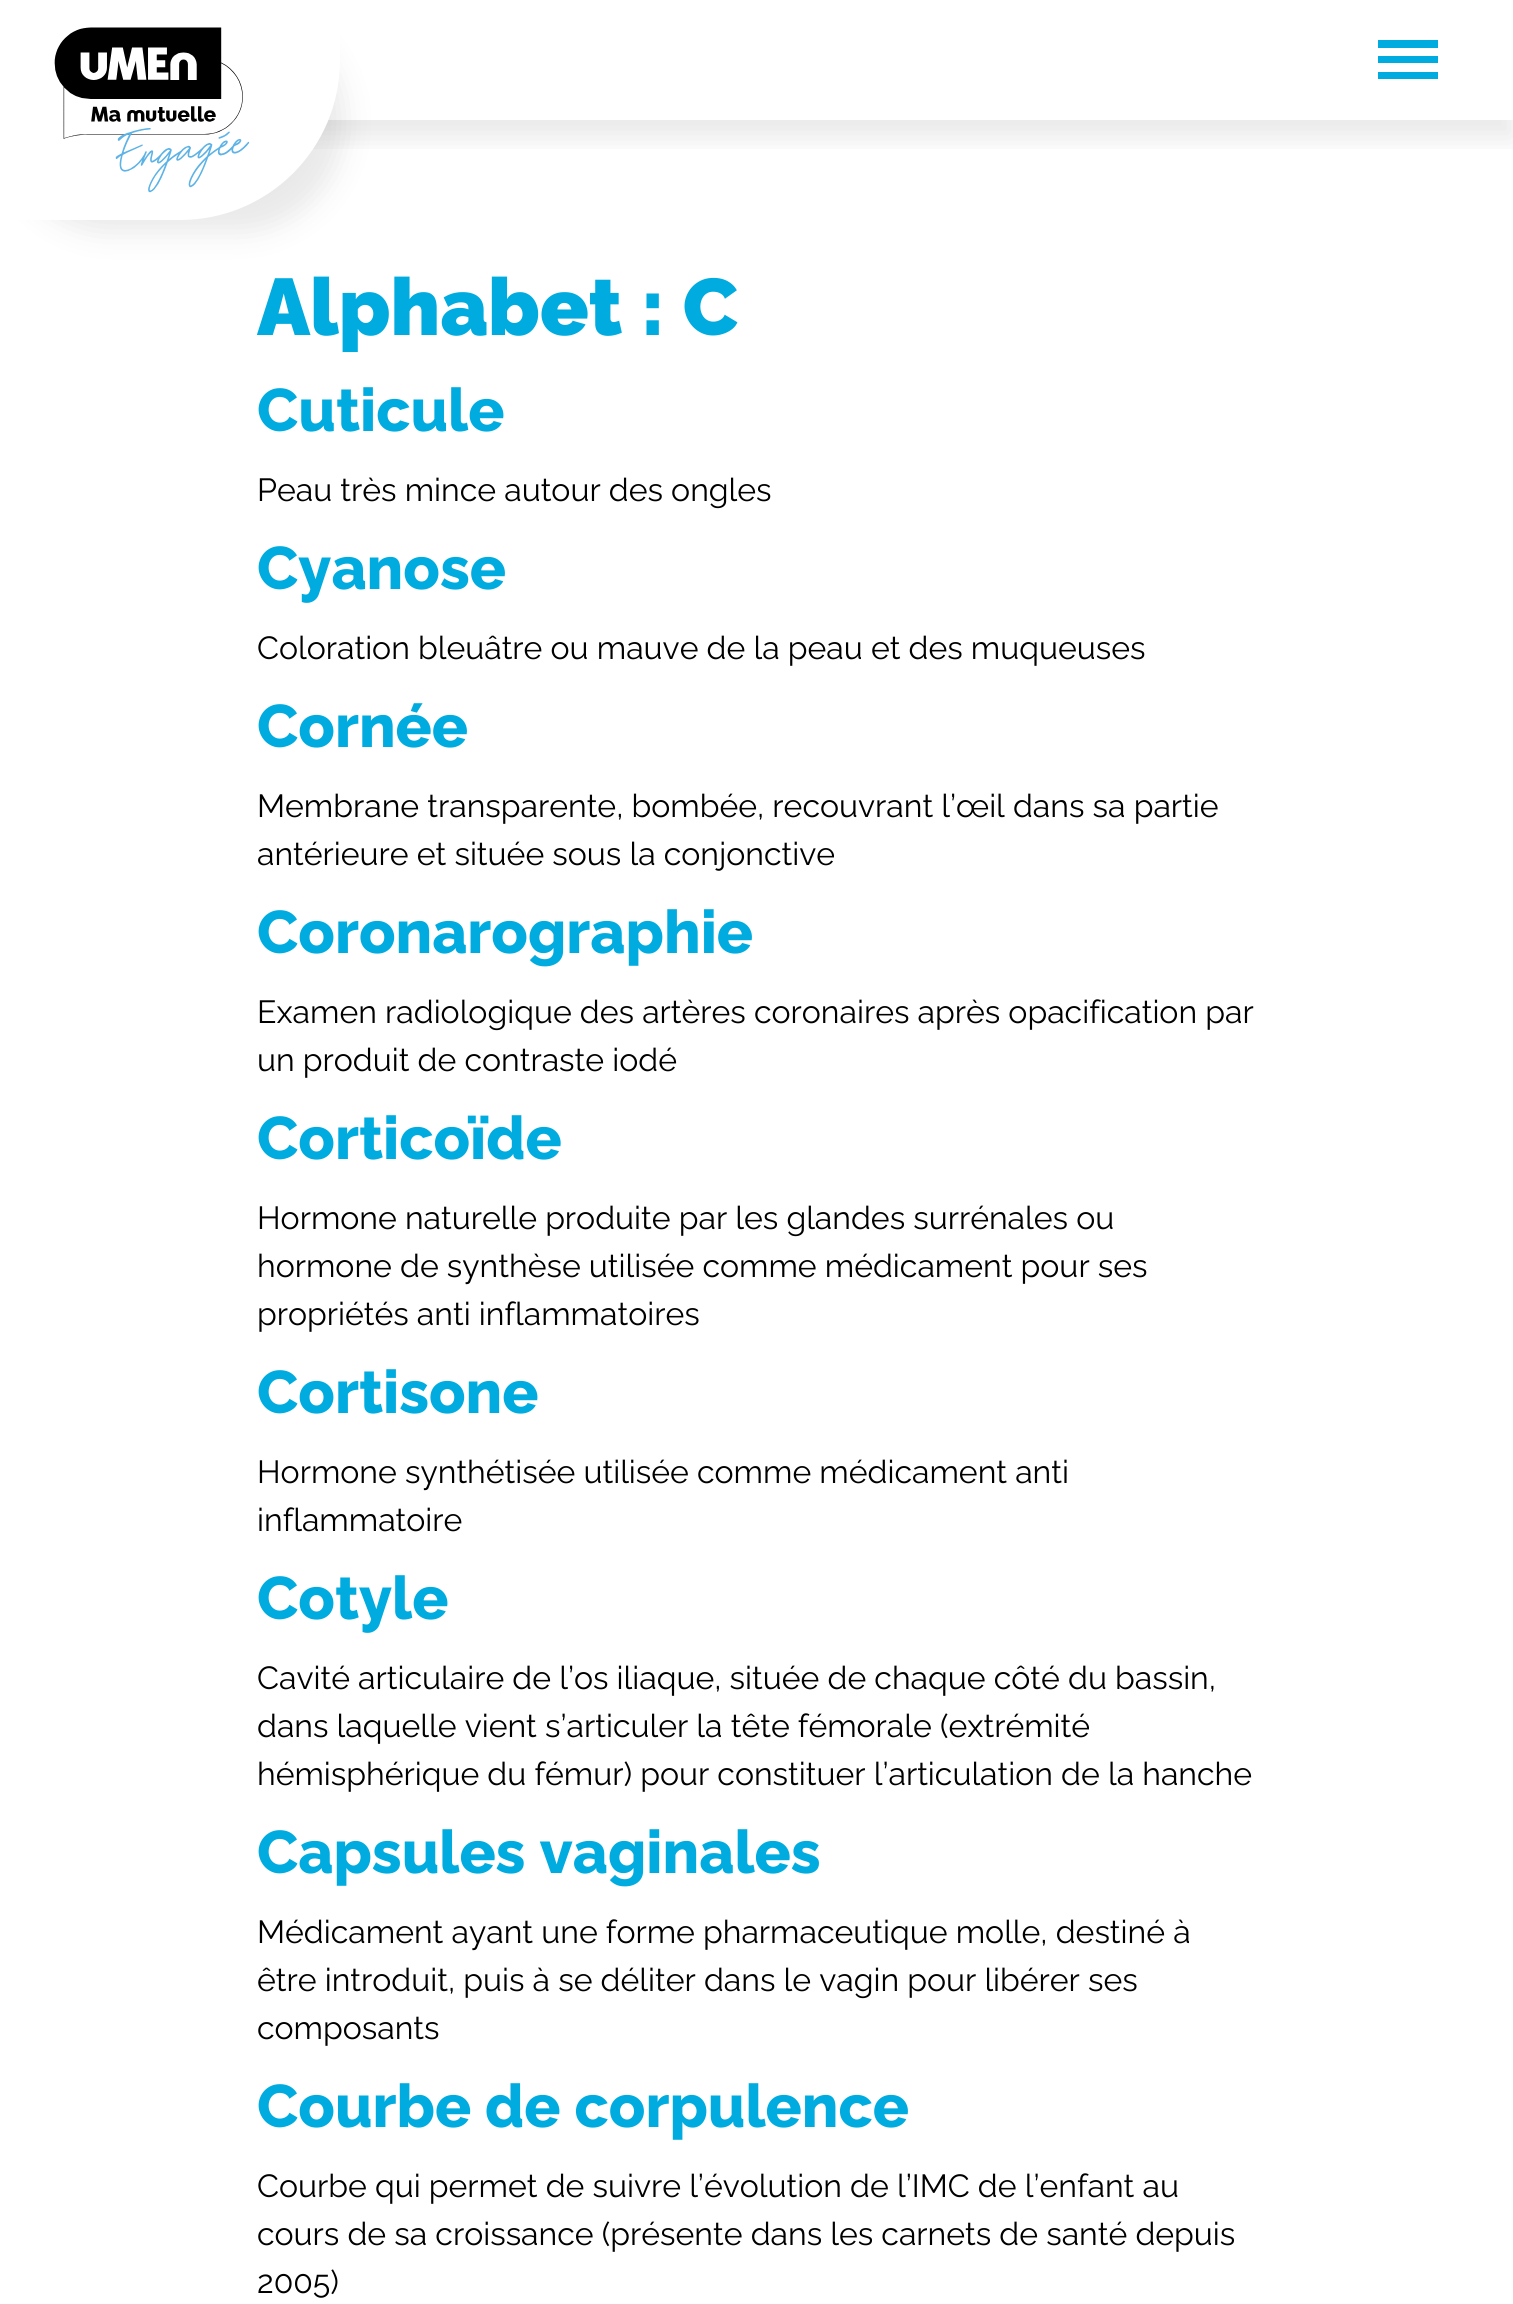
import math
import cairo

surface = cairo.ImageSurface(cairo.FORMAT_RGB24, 1513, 2304)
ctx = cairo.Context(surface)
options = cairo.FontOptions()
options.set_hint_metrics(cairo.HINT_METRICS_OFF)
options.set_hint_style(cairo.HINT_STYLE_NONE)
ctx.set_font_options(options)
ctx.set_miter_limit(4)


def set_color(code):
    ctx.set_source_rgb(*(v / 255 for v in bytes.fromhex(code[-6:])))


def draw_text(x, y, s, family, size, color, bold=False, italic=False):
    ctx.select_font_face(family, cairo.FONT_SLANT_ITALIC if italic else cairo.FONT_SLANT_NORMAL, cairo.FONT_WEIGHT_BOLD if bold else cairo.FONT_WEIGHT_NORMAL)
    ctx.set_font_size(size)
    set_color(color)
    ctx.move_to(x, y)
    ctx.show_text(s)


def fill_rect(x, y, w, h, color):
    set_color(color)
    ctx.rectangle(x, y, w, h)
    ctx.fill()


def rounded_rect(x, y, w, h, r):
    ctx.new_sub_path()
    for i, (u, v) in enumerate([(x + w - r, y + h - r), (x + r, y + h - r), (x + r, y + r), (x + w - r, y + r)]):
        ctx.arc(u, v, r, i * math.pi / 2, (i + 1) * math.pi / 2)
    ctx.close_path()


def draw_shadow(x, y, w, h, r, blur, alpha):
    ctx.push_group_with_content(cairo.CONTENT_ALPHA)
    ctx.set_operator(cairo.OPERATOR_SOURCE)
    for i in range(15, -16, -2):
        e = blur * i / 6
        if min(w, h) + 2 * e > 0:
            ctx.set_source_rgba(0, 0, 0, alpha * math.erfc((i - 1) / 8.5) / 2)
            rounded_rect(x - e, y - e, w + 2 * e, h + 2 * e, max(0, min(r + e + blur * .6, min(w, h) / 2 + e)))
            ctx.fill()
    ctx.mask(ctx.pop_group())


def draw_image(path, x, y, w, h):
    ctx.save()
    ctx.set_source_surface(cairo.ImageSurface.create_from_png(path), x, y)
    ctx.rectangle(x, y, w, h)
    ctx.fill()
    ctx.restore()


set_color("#ffffff")
ctx.paint()
ctx.save()
ctx.rectangle(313, 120, 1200, 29)
ctx.clip()
set_color("#000000")
draw_shadow(0, 18, 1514, 120, 0, 15, 0.09)
ctx.restore()
fill_rect(1378, 40, 60, 8, "#00abdf")
fill_rect(1378, 56, 60, 7, "#00abdf")
fill_rect(1378, 72, 60, 7, "#00abdf")
set_color("#000000")
draw_shadow(4, 12, 340, 220, 160, 15, 0.09)
set_color("#ffffff")
ctx.new_path()
ctx.move_to(0, 0)
ctx.line_to(340, 0)
ctx.line_to(340, 60)
ctx.curve_to(340, 148.5, 268.5, 220, 180, 220)
ctx.line_to(0, 220)
ctx.close_path()
ctx.fill()
draw_image("assets/img1.png", 54, 27, 196, 166)
draw_text(257, 335, "Alphabet : C", "Raleway Black", 80, "#00abdf")
draw_text(257, 431, "Cuticule", "Raleway ExtraBold", 60, "#00abdf")
draw_text(257, 501, "Peau très mince autour des ongles", "Raleway", 32, "#000000")
draw_text(257, 589, "Cyanose", "Raleway ExtraBold", 60, "#00abdf")
draw_text(257, 659, "Coloration bleuâtre ou mauve de la peau et des muqueuses", "Raleway", 32, "#000000")
draw_text(257, 747, "Cornée", "Raleway ExtraBold", 60, "#00abdf")
draw_text(257, 817, "Membrane transparente, bombée, recouvrant l’œil dans sa partie", "Raleway", 32, "#000000")
draw_text(257, 865, "antérieure et située sous la conjonctive", "Raleway", 32, "#000000")
draw_text(257, 953, "Coronarographie", "Raleway ExtraBold", 60, "#00abdf")
draw_text(257, 1023, "Examen radiologique des artères coronaires après opacification par", "Raleway", 32, "#000000")
draw_text(257, 1071, "un produit de contraste iodé", "Raleway", 32, "#000000")
draw_text(257, 1159, "Corticoïde", "Raleway ExtraBold", 60, "#00abdf")
draw_text(257, 1229, "Hormone naturelle produite par les glandes surrénales ou", "Raleway", 32, "#000000")
draw_text(257, 1277, "hormone de synthèse utilisée comme médicament pour ses", "Raleway", 32, "#000000")
draw_text(257, 1325, "propriétés anti inflammatoires", "Raleway", 32, "#000000")
draw_text(257, 1413, "Cortisone", "Raleway ExtraBold", 60, "#00abdf")
draw_text(257, 1483, "Hormone synthétisée utilisée comme médicament anti", "Raleway", 32, "#000000")
draw_text(257, 1531, "inflammatoire", "Raleway", 32, "#000000")
draw_text(257, 1619, "Cotyle", "Raleway ExtraBold", 60, "#00abdf")
draw_text(257, 1689, "Cavité articulaire de l’os iliaque, située de chaque côté du bassin,", "Raleway", 32, "#000000")
draw_text(257, 1737, "dans laquelle vient s’articuler la tête fémorale (extrémité", "Raleway", 32, "#000000")
draw_text(257, 1785, "hémisphérique du fémur) pour constituer l’articulation de la hanche", "Raleway", 32, "#000000")
draw_text(257, 1873, "Capsules vaginales", "Raleway ExtraBold", 60, "#00abdf")
draw_text(257, 1943, "Médicament ayant une forme pharmaceutique molle, destiné à", "Raleway", 32, "#000000")
draw_text(257, 1991, "être introduit, puis à se déliter dans le vagin pour libérer ses", "Raleway", 32, "#000000")
draw_text(257, 2039, "composants", "Raleway", 32, "#000000")
draw_text(257, 2127, "Courbe de corpulence", "Raleway ExtraBold", 60, "#00abdf")
draw_text(257, 2197, "Courbe qui permet de suivre l’évolution de l’IMC de l’enfant au", "Raleway", 32, "#000000")
draw_text(257, 2245, "cours de sa croissance (présente dans les carnets de santé depuis", "Raleway", 32, "#000000")
draw_text(257, 2293, "2005)", "Raleway", 32, "#000000")
surface.write_to_png("output.png")
